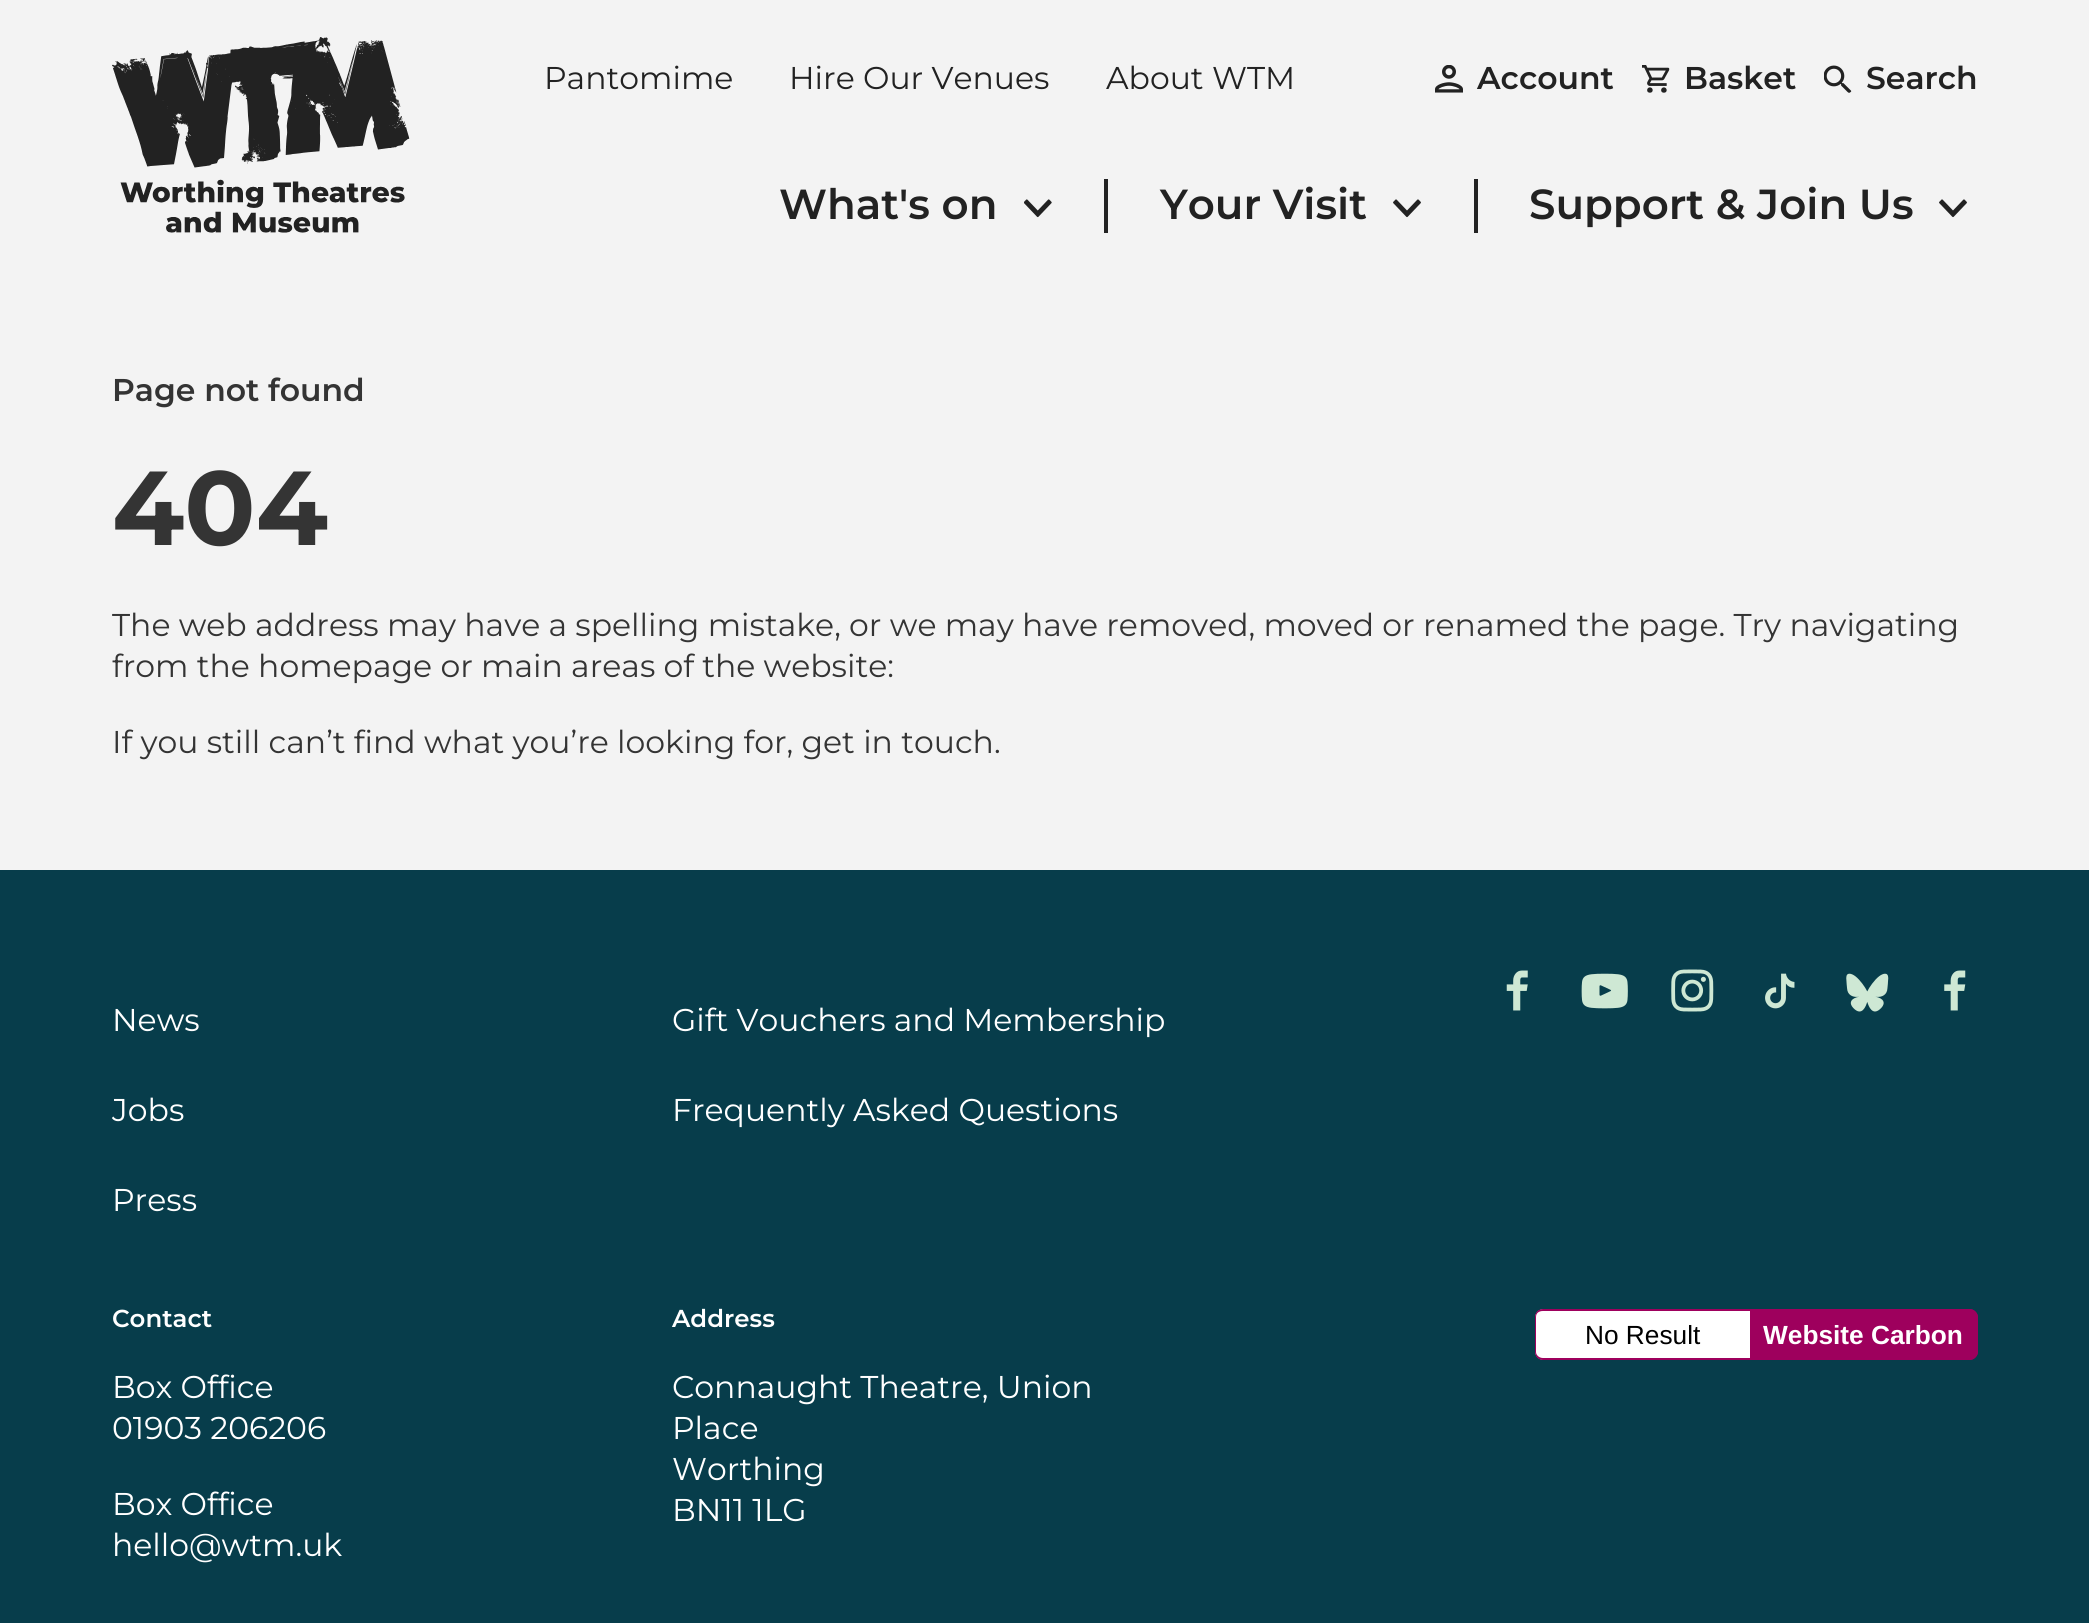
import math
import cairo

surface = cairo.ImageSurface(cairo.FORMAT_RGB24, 2089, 1623)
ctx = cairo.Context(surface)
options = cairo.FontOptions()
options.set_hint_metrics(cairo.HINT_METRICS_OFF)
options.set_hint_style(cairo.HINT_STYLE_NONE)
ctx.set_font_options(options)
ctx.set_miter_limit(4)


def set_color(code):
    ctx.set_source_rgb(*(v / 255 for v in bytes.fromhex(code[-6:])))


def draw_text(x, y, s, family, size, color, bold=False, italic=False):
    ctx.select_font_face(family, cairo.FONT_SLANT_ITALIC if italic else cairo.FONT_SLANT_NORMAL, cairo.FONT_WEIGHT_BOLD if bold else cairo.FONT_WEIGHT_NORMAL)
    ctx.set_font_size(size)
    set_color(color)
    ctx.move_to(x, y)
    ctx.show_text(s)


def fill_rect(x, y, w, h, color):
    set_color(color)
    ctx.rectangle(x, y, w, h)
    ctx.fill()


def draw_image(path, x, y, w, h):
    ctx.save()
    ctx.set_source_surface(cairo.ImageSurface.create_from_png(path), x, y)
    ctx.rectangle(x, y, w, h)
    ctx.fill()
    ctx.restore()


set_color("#f3f3f3")
ctx.paint()
draw_image("assets/img1.png", 112, 37, 298, 196)
draw_text(544, 89, "Pantomime", "Montserrat", 31.5, "#222222")
draw_text(789, 89, "Hire Our Venues", "Montserrat", 31.5, "#222222")
draw_text(1106, 89, "About WTM", "Montserrat", 31.5, "#222222")
draw_image("assets/img2.png", 1435, 65, 28, 28)
draw_text(1477, 89, "Account", "Montserrat SemiBold", 31.5, "#222222")
draw_image("assets/img3.png", 1642, 65, 28, 28)
draw_text(1684, 89, "Basket", "Montserrat SemiBold", 31.5, "#222222")
draw_image("assets/img4.png", 1824, 65, 28, 28)
draw_text(1866, 89, "Search", "Montserrat SemiBold", 31.5, "#222222")
fill_rect(1104, 179, 4, 54, "#222222")
draw_text(779, 219, "What's on", "Montserrat SemiBold", 42, "#222222")
draw_image("assets/img5.png", 1024, 199, 28, 19)
fill_rect(1474, 179, 4, 54, "#222222")
draw_text(1160, 219, "Your Visit", "Montserrat SemiBold", 42, "#222222")
draw_image("assets/img6.png", 1393, 199, 28, 19)
draw_text(1529, 219, "Support & Join Us", "Montserrat SemiBold", 42, "#222222")
draw_image("assets/img6.png", 1939, 199, 28, 19)
draw_text(112, 401, "Page not found", "Montserrat SemiBold", 31.5, "#343434")
draw_text(112, 545, "404", "Montserrat", 105, "#343434", bold=True)
draw_text(112, 636, "The web address may have a spelling mistake, or we may have removed, moved or renamed the page. Try navigating", "Montserrat", 31.5, "#343434")
draw_text(112, 677, "from the homepage or main areas of the website:", "Montserrat", 31.5, "#343434")
draw_text(112, 753, "If you still can’t find what you’re looking for, get in touch.", "Montserrat", 31.5, "#343434")
fill_rect(0, 870, 2089, 753, "#073d4b")
draw_image("assets/img7.png", 1506, 970, 22, 41)
draw_image("assets/img8.png", 1581, 973, 47, 36)
draw_image("assets/img9.png", 1671, 969, 43, 43)
draw_image("assets/img10.png", 1765, 973, 30, 36)
draw_image("assets/img11.png", 1846, 973, 43, 39)
draw_image("assets/img12.png", 1944, 970, 22, 41)
draw_text(112, 1031, "News", "Montserrat", 31.5, "#ffffff")
draw_text(672, 1031, "Gift Vouchers and Membership", "Montserrat", 31.5, "#ffffff")
draw_text(112, 1121, "Jobs", "Montserrat", 31.5, "#ffffff")
draw_text(672, 1121, "Frequently Asked Questions", "Montserrat", 31.5, "#ffffff")
draw_text(112, 1211, "Press", "Montserrat", 31.5, "#ffffff")
draw_text(112, 1327, "Contact", "Montserrat SemiBold", 24.5, "#ffffff")
draw_text(112, 1398, "Box Office", "Montserrat", 31.5, "#ffffff")
draw_text(112, 1439, "01903 206206", "Montserrat", 31.5, "#ffffff")
draw_text(112, 1515, "Box Office", "Montserrat", 31.5, "#ffffff")
draw_text(112, 1556, "hello@wtm.uk", "Montserrat", 31.5, "#ffffff")
draw_text(672, 1327, "Address", "Montserrat SemiBold", 24.5, "#ffffff")
draw_text(672, 1398, "Connaught Theatre, Union", "Montserrat", 31.5, "#ffffff")
draw_text(672, 1439, "Place", "Montserrat", 31.5, "#ffffff")
draw_text(672, 1480, "Worthing", "Montserrat", 31.5, "#ffffff")
draw_text(672, 1521, "BN11 1LG", "Montserrat", 31.5, "#ffffff")
ctx.new_path()
ctx.move_to(1544, 1309)
ctx.line_to(1750, 1309)
ctx.line_to(1750, 1360)
ctx.line_to(1544, 1360)
ctx.curve_to(1539, 1360, 1535, 1356, 1535, 1351)
ctx.line_to(1535, 1318)
ctx.curve_to(1535, 1313, 1539, 1309, 1544, 1309)
ctx.close_path()
ctx.fill()
set_color("#9e005d")
ctx.set_fill_rule(cairo.FILL_RULE_EVEN_ODD)
ctx.new_path()
ctx.move_to(1543, 1309)
ctx.line_to(1750, 1309)
ctx.line_to(1750, 1360)
ctx.line_to(1543, 1360)
ctx.curve_to(1538, 1360, 1535, 1356, 1535, 1352)
ctx.line_to(1535, 1317)
ctx.curve_to(1535, 1313, 1538, 1309, 1543, 1309)
ctx.close_path()
ctx.move_to(1543, 1311)
ctx.line_to(1750, 1311)
ctx.line_to(1750, 1358)
ctx.line_to(1543, 1358)
ctx.curve_to(1539, 1358, 1536, 1355, 1536, 1352)
ctx.line_to(1536, 1317)
ctx.curve_to(1536, 1313, 1539, 1311, 1543, 1311)
ctx.close_path()
ctx.fill()
draw_text(1585, 1344, "No Result", "Liberation Sans", 26.25, "#000000")
set_color("#9e005d")
ctx.new_path()
ctx.move_to(1750, 1309)
ctx.line_to(1969, 1309)
ctx.curve_to(1974, 1309, 1978, 1313, 1978, 1318)
ctx.line_to(1978, 1351)
ctx.curve_to(1978, 1356, 1974, 1360, 1969, 1360)
ctx.line_to(1750, 1360)
ctx.close_path()
ctx.fill()
ctx.new_path()
ctx.move_to(1750, 1309)
ctx.line_to(1970, 1309)
ctx.curve_to(1974, 1309, 1978, 1313, 1978, 1317)
ctx.line_to(1978, 1352)
ctx.curve_to(1978, 1356, 1974, 1360, 1970, 1360)
ctx.line_to(1750, 1360)
ctx.close_path()
ctx.move_to(1750, 1311)
ctx.line_to(1970, 1311)
ctx.curve_to(1973, 1311, 1976, 1313, 1976, 1317)
ctx.line_to(1976, 1352)
ctx.curve_to(1976, 1355, 1973, 1358, 1970, 1358)
ctx.line_to(1750, 1358)
ctx.close_path()
ctx.fill()
draw_text(1763, 1344, "Website Carbon", "Liberation Sans", 26.25, "#ffffff", bold=True)
surface.write_to_png("output.png")
